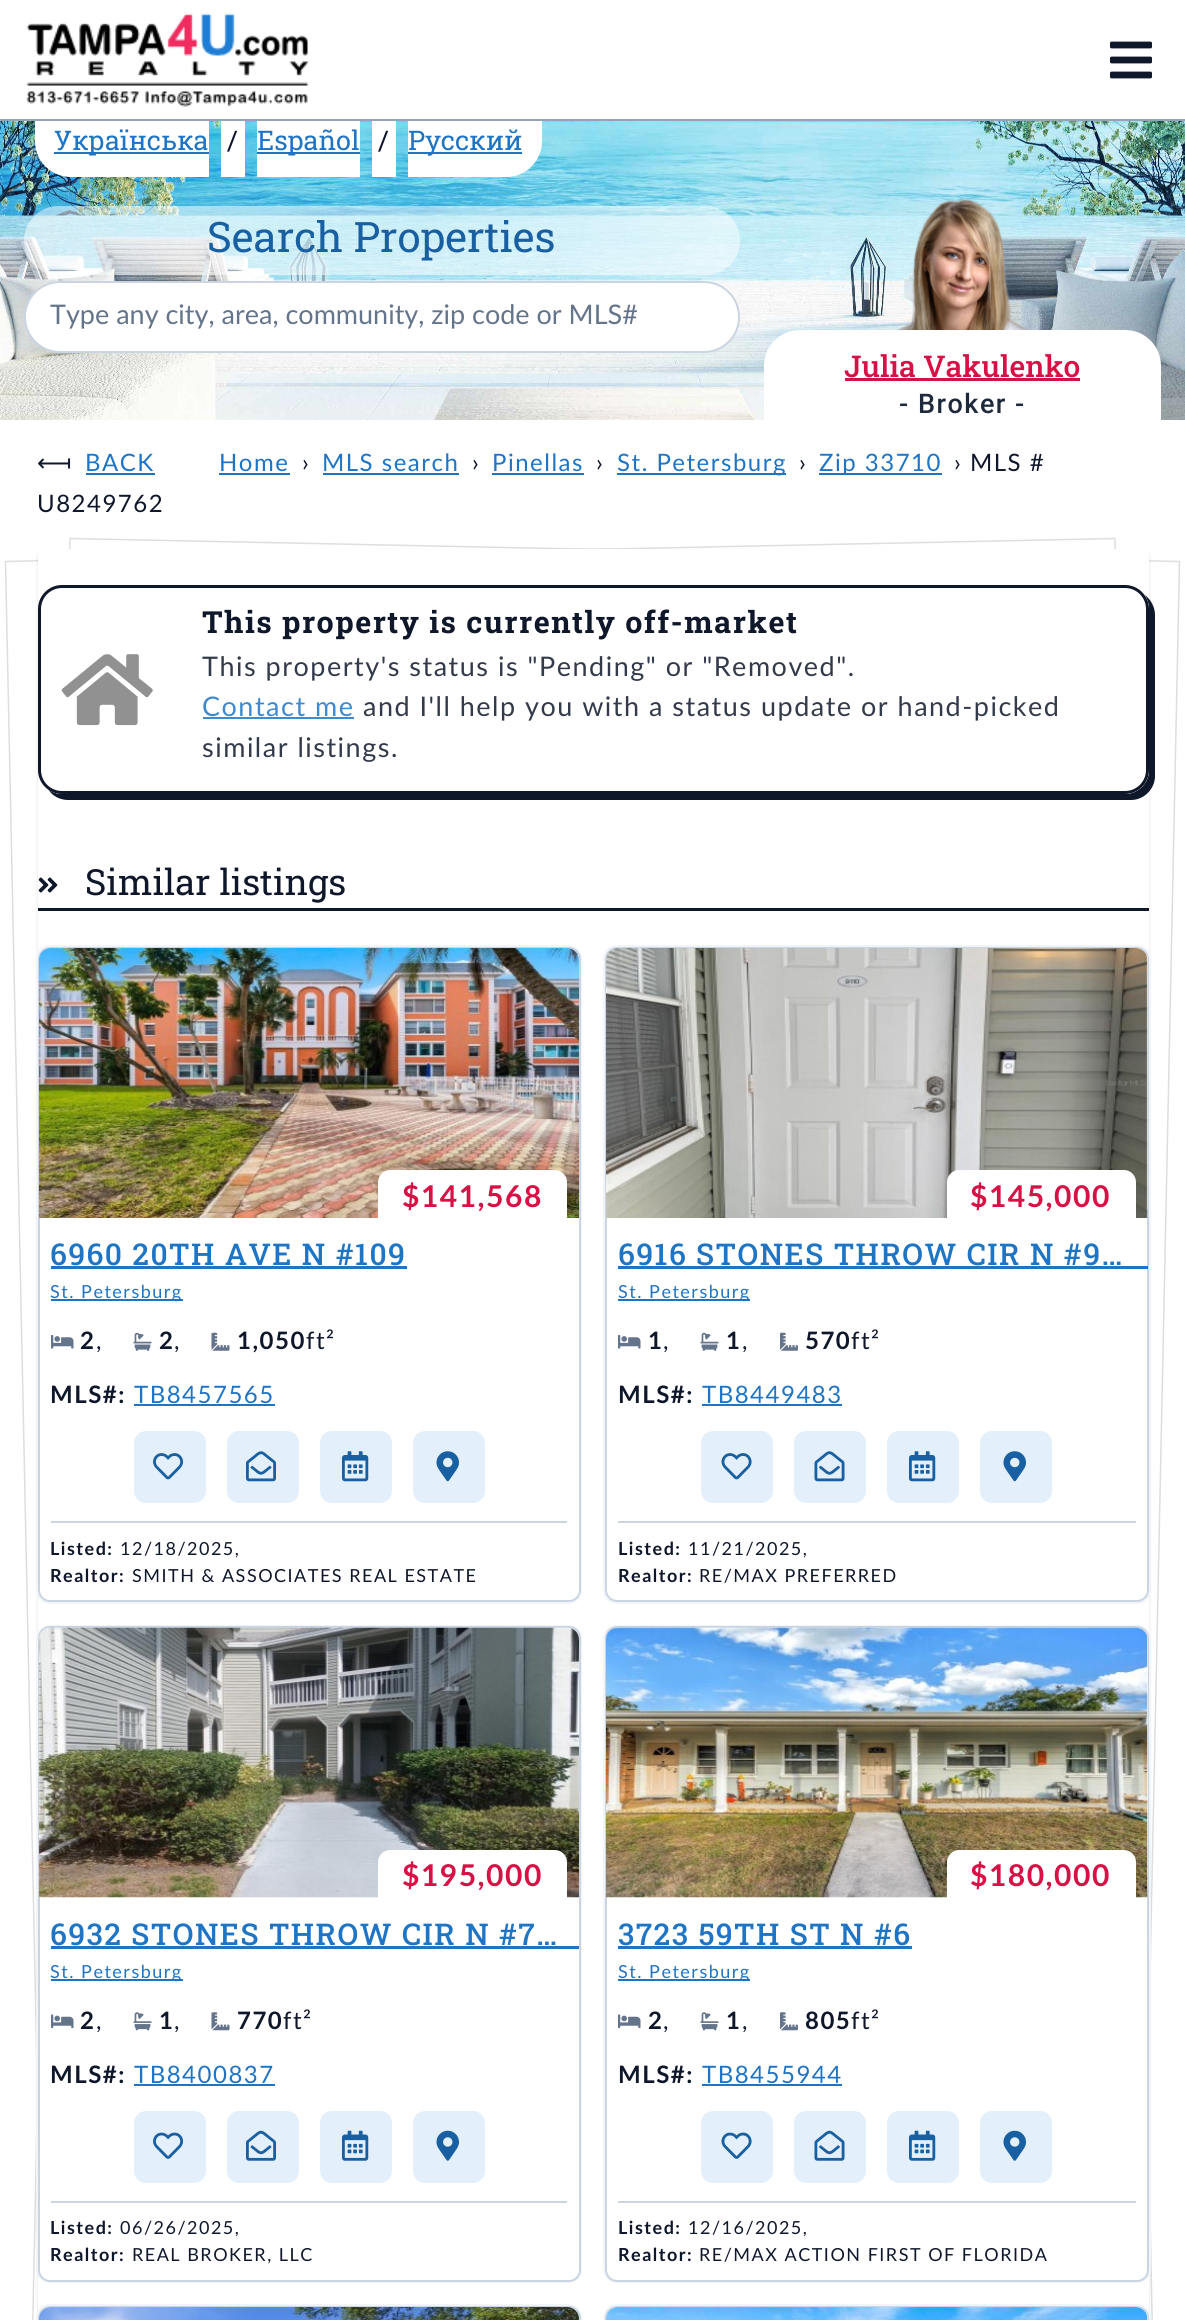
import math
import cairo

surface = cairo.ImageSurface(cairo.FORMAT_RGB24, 1185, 2320)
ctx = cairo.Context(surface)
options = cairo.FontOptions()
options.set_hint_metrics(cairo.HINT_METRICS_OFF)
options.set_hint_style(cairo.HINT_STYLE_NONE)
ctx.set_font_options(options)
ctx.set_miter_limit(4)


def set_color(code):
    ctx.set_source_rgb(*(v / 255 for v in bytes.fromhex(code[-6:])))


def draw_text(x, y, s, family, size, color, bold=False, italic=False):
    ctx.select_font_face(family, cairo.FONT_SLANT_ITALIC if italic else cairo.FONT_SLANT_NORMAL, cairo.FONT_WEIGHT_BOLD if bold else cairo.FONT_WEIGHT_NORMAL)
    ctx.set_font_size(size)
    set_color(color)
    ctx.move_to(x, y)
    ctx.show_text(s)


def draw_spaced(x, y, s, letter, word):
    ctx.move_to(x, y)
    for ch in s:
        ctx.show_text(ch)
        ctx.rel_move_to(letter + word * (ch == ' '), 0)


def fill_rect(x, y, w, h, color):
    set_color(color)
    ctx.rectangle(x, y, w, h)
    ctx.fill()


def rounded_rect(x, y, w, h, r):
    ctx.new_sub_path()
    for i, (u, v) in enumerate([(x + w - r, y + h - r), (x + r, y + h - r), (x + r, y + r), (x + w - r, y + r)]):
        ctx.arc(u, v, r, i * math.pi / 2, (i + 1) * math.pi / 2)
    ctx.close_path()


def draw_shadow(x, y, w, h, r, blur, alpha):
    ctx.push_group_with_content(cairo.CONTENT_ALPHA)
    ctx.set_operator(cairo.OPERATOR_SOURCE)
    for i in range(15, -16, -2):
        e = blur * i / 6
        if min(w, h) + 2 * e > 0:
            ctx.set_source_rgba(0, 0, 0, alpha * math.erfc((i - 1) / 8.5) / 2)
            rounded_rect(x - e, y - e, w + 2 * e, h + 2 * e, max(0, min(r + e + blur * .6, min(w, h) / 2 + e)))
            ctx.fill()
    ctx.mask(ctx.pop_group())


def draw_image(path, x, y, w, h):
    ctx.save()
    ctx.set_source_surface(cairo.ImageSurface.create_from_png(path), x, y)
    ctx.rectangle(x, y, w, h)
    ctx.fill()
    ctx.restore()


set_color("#ffffff")
ctx.paint()
draw_image("assets/img3.png", 0, 121, 1185, 299)
set_color("#ffffff")
ctx.new_path()
ctx.move_to(35, 120)
ctx.line_to(209, 120)
ctx.line_to(209, 177)
ctx.line_to(71, 177)
ctx.curve_to(51, 177, 35, 161, 35, 141)
ctx.close_path()
ctx.fill()
ctx.new_path()
ctx.move_to(408, 120)
ctx.line_to(542, 120)
ctx.line_to(542, 141)
ctx.curve_to(542, 161, 526, 177, 506, 177)
ctx.line_to(408, 177)
ctx.close_path()
ctx.fill()
fill_rect(0, 119, 1185, 2, "#94a3b8")
draw_image("assets/img1.png", 26, 13, 283, 94)
draw_image("assets/img2.png", 1110, 41, 42, 38)
fill_rect(54, 152, 155, 2, "#1e74c5")
draw_text(54, 150, "Українська", "Roboto Slab", 27, "#1e74c5")
fill_rect(221, 121, 24, 56, "#ffffff")
draw_text(227, 150, "/", "Roboto Slab", 27, "#0f172a")
fill_rect(257, 121, 103, 56, "#ffffff")
fill_rect(257, 152, 103, 2, "#1e74c5")
draw_text(257, 150, "Español", "Roboto Slab", 27, "#1e74c5")
fill_rect(372, 121, 24, 56, "#ffffff")
draw_text(378, 150, "/", "Roboto Slab", 27, "#0f172a")
fill_rect(408, 152, 114, 2, "#1e74c5")
draw_text(408, 150, "Русский", "Roboto Slab", 27, "#1e74c5")
ctx.set_source_rgba(1, 1, 1, 0.5)
rounded_rect(24, 206, 716, 69, 34.5)
ctx.fill()
draw_text(207, 252, "Search Properties", "Roboto Slab", 42, "#1960a3")
set_color("#ffffff")
rounded_rect(25, 282, 714, 70, 35)
ctx.fill_preserve()
set_color("#cbd5e1")
ctx.stroke()
draw_text(50, 324, "Type any city, area, community, zip code or MLS#", "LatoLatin", 27, "#64748b")
draw_image("assets/img4.png", 897, 198, 135, 132)
set_color("#ffffff")
ctx.new_path()
ctx.move_to(800, 330)
ctx.line_to(1125, 330)
ctx.curve_to(1145, 330, 1161, 346, 1161, 366)
ctx.line_to(1161, 420)
ctx.line_to(764, 420)
ctx.line_to(764, 366)
ctx.curve_to(764, 346, 780, 330, 800, 330)
ctx.close_path()
ctx.fill()
draw_text(844, 377, "Julia Vakulenko", "Roboto Slab Medium", 30, "#d71045")
fill_rect(845, 378, 235, 3, "#d71045")
ctx.select_font_face("Roboto Medium")
ctx.set_font_size(27)
set_color("#1e293b")
draw_spaced(899, 413, "- Broker -", 1.5, 0)
ctx.select_font_face("DejaVu Sans")
ctx.set_font_size(24)
set_color("#0f172a")
draw_spaced(37, 471, "⟻", 1.5, 0)
ctx.select_font_face("LatoLatin")
set_color("#1e74c5")
draw_spaced(85, 471, "BACK", 1.5, 0)
fill_rect(86, 473, 69, 2, "#1e74c5")
draw_spaced(219, 471, "Home", 1.5, 0)
fill_rect(219, 473, 71, 2, "#1e74c5")
set_color("#0f172a")
draw_spaced(302, 471, "›", 1.5, 0)
set_color("#1e74c5")
draw_spaced(322, 471, "MLS search", 1.5, 0)
fill_rect(323, 473, 136, 2, "#1e74c5")
set_color("#0f172a")
draw_spaced(472, 471, "›", 1.5, 0)
set_color("#1e74c5")
draw_spaced(492, 471, "Pinellas", 1.5, 0)
fill_rect(492, 473, 92, 2, "#1e74c5")
set_color("#0f172a")
draw_spaced(596, 471, "›", 1.5, 0)
fill_rect(617, 473, 169, 2, "#1e74c5")
draw_spaced(617, 471, "St. Petersburg", 1.5, 0)
set_color("#0f172a")
draw_spaced(799, 471, "›", 1.5, 0)
fill_rect(819, 473, 123, 2, "#1e74c5")
draw_spaced(819, 471, "Zip 33710", 1.5, 0)
set_color("#0f172a")
draw_spaced(954, 471, "› MLS #", 1.5, 0)
draw_spaced(37, 512, "U8249762", 1.5, 0)
ctx.new_path()
ctx.move_to(5.5, 561.5)
ctx.line_to(1115, 538.5)
ctx.line_to(1179.5, 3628.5)
ctx.line_to(70, 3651.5)
ctx.close_path()
set_color("#dedede")
ctx.set_line_width(1.5)
ctx.stroke()
set_color("#ffffff")
ctx.new_path()
ctx.move_to(69, 538)
ctx.line_to(1181, 561)
ctx.line_to(1116, 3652)
ctx.line_to(4, 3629)
ctx.close_path()
ctx.fill()
ctx.new_path()
ctx.move_to(70, 538.5)
ctx.line_to(1179.5, 561.5)
ctx.line_to(1115, 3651.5)
ctx.line_to(5.5, 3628.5)
ctx.close_path()
ctx.set_source_rgba(0.133, 0.141, 0.149, 0.15)
ctx.stroke()
set_color("#222426")
draw_shadow(38, 551, 1111, 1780, 6, 1.5, 0.15)
set_color("#ffffff")
rounded_rect(38, 549, 1111, 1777, 6)
ctx.fill()
set_color("#0f172a")
ctx.new_path()
ctx.move_to(48, 789)
ctx.curve_to(52, 796, 60, 800, 68, 800)
ctx.line_to(1131, 800)
ctx.curve_to(1144, 800, 1155, 789, 1155, 776)
ctx.line_to(1155, 615)
ctx.curve_to(1155, 607, 1151, 600, 1145, 595)
ctx.curve_to(1147, 599, 1149, 604, 1149, 609)
ctx.line_to(1149, 770)
ctx.curve_to(1149, 783, 1138, 794, 1125, 794)
ctx.line_to(62, 794)
ctx.curve_to(57, 794, 52, 792, 48, 789)
ctx.close_path()
ctx.fill()
set_color("#ffffff")
rounded_rect(38, 585, 1111, 209, 24)
ctx.fill()
rounded_rect(39.5, 586.5, 1108, 206, 22.5)
set_color("#0f172a")
ctx.set_line_width(3)
ctx.stroke()
draw_image("assets/img5.png", 61, 654, 92, 72)
ctx.select_font_face("Roboto Slab", cairo.FONT_SLANT_NORMAL, cairo.FONT_WEIGHT_BOLD)
ctx.set_font_size(30.4)
draw_spaced(202, 633, "This property is currently off-market", 1.5, 0)
ctx.select_font_face("LatoLatin")
ctx.set_font_size(27)
set_color("#333a4a")
draw_spaced(202, 676, "This property's status is \"Pending\" or \"Removed\".", 1.5, 0)
set_color("#4089ce")
draw_spaced(202, 716, "Contact me", 1.5, 0)
fill_rect(203, 717, 151, 2, "#4089ce")
set_color("#333a4a")
draw_spaced(363, 716, "and I'll help you with a status update or hand-picked", 1.5, 0)
draw_spaced(202, 757, "similar listings.", 1.5, 0)
fill_rect(38, 908, 1111, 3, "#0f172a")
draw_image("assets/img6.png", 38, 877, 20, 16)
draw_text(85, 895, "Similar listings", "Roboto Slab", 36, "#0f172a")
rounded_rect(37, 946, 544, 657, 13)
set_color("#f1f5f9")
ctx.set_line_width(2)
ctx.stroke()
rounded_rect(39, 948, 541, 653, 11)
set_color("#cbd5e1")
ctx.stroke()
draw_image("assets/img7.png", 39, 948, 540, 270)
set_color("#ffffff")
ctx.new_path()
ctx.move_to(390, 1170)
ctx.line_to(555, 1170)
ctx.curve_to(561.5, 1170, 567, 1175.5, 567, 1182)
ctx.line_to(567, 1218)
ctx.line_to(378, 1218)
ctx.line_to(378, 1182)
ctx.curve_to(378, 1175.5, 383.5, 1170, 390, 1170)
ctx.close_path()
ctx.fill()
ctx.select_font_face("LatoLatin", cairo.FONT_SLANT_NORMAL, cairo.FONT_WEIGHT_BOLD)
ctx.set_font_size(30)
set_color("#d71045")
draw_spaced(402, 1207, "$141,568", 1.5, 0)
ctx.select_font_face("Roboto Slab Medium")
set_color("#1e74c5")
draw_spaced(50, 1265, "6960 20TH AVE N #109", 1.5, 0)
fill_rect(51, 1266, 356, 3, "#1e74c5")
fill_rect(51, 1299, 132, 2, "#1e74c5")
ctx.select_font_face("LatoLatin")
ctx.set_font_size(18)
draw_spaced(50, 1298, "St. Petersburg", 1.5, 0)
draw_image("assets/img8.png", 51, 1335, 23, 14)
ctx.select_font_face("LatoLatin", cairo.FONT_SLANT_NORMAL, cairo.FONT_WEIGHT_BOLD)
ctx.set_font_size(24)
set_color("#0f172a")
draw_spaced(80, 1349, "2", 1.5, 0)
ctx.select_font_face("LatoLatin")
draw_spaced(96, 1349, ",", 1.5, 0)
draw_image("assets/img9.png", 133, 1332, 19, 19)
ctx.select_font_face("LatoLatin", cairo.FONT_SLANT_NORMAL, cairo.FONT_WEIGHT_BOLD)
draw_spaced(159, 1349, "2", 1.5, 0)
ctx.select_font_face("LatoLatin")
draw_spaced(174, 1349, ",", 1.5, 0)
draw_image("assets/img10.png", 211, 1332, 19, 19)
ctx.select_font_face("LatoLatin", cairo.FONT_SLANT_NORMAL, cairo.FONT_WEIGHT_BOLD)
draw_spaced(237, 1349, "1,050", 1.5, 0)
ctx.select_font_face("LatoLatin")
draw_spaced(306, 1349, "ft²", 1.5, 0)
ctx.select_font_face("LatoLatin", cairo.FONT_SLANT_NORMAL, cairo.FONT_WEIGHT_BOLD)
draw_spaced(50, 1403, "MLS#:", 1.5, 0)
ctx.select_font_face("LatoLatin")
set_color("#1e74c5")
draw_spaced(134, 1403, "TB8457565", 1.5, 0)
fill_rect(134, 1404, 141, 2, "#1e74c5")
set_color("#e3effa")
rounded_rect(134, 1431, 72, 72, 12)
ctx.fill()
draw_image("assets/img11.png", 153, 1453, 31, 27)
rounded_rect(227, 1431, 72, 72, 12)
ctx.fill()
draw_image("assets/img12.png", 246, 1451, 30, 31)
rounded_rect(320, 1431, 72, 72, 12)
ctx.fill()
draw_image("assets/img13.png", 342, 1451, 27, 31)
rounded_rect(413, 1431, 72, 72, 12)
ctx.fill()
draw_image("assets/img14.png", 436, 1451, 23, 31)
fill_rect(51, 1521, 516, 2, "#cbd5e1")
ctx.select_font_face("LatoLatin", cairo.FONT_SLANT_NORMAL, cairo.FONT_WEIGHT_BOLD)
ctx.set_font_size(18)
set_color("#0f172a")
draw_spaced(50, 1555, "Listed:", 1.5, 0)
ctx.select_font_face("LatoLatin")
draw_spaced(120, 1555, "12/18/2025,", 1.5, 0)
ctx.select_font_face("LatoLatin", cairo.FONT_SLANT_NORMAL, cairo.FONT_WEIGHT_BOLD)
draw_spaced(50, 1582, "Realtor:", 1.5, 0)
ctx.select_font_face("LatoLatin")
draw_spaced(132, 1582, "SMITH & ASSOCIATES REAL ESTATE", 1.5, 0)
rounded_rect(604, 946, 546, 657, 13)
set_color("#f1f5f9")
ctx.stroke()
rounded_rect(606, 948, 542, 653, 11)
set_color("#cbd5e1")
ctx.stroke()
set_color("#f8fafc")
rounded_rect(606, 948, 542, 270, 12)
ctx.fill()
draw_image("assets/img15.png", 606, 948, 542, 270)
set_color("#ffffff")
ctx.new_path()
ctx.move_to(959, 1170)
ctx.line_to(1124, 1170)
ctx.curve_to(1130.5, 1170, 1136, 1175.5, 1136, 1182)
ctx.line_to(1136, 1218)
ctx.line_to(947, 1218)
ctx.line_to(947, 1182)
ctx.curve_to(947, 1175.5, 952.5, 1170, 959, 1170)
ctx.close_path()
ctx.fill()
ctx.select_font_face("LatoLatin", cairo.FONT_SLANT_NORMAL, cairo.FONT_WEIGHT_BOLD)
ctx.set_font_size(30)
set_color("#d71045")
draw_spaced(970, 1207, "$145,000", 1.5, 0)
ctx.select_font_face("Roboto Slab Medium")
set_color("#1e74c5")
draw_spaced(618, 1265, "6916 STONES THROW CIR N #9…", 1.5, 0)
fill_rect(618, 1266, 530, 3, "#1e74c5")
fill_rect(618, 1299, 132, 2, "#1e74c5")
ctx.select_font_face("LatoLatin")
ctx.set_font_size(18)
draw_spaced(618, 1298, "St. Petersburg", 1.5, 0)
draw_image("assets/img8.png", 618, 1335, 23, 14)
ctx.select_font_face("LatoLatin", cairo.FONT_SLANT_NORMAL, cairo.FONT_WEIGHT_BOLD)
ctx.set_font_size(24)
set_color("#0f172a")
draw_spaced(648, 1349, "1", 1.5, 0)
ctx.select_font_face("LatoLatin")
draw_spaced(663, 1349, ",", 1.5, 0)
draw_image("assets/img9.png", 700, 1332, 19, 19)
ctx.select_font_face("LatoLatin", cairo.FONT_SLANT_NORMAL, cairo.FONT_WEIGHT_BOLD)
draw_spaced(726, 1349, "1", 1.5, 0)
ctx.select_font_face("LatoLatin")
draw_spaced(742, 1349, ",", 1.5, 0)
draw_image("assets/img16.png", 780, 1332, 18, 19)
ctx.select_font_face("LatoLatin", cairo.FONT_SLANT_NORMAL, cairo.FONT_WEIGHT_BOLD)
draw_spaced(805, 1349, "570", 1.5, 0)
ctx.select_font_face("LatoLatin")
draw_spaced(851, 1349, "ft²", 1.5, 0)
ctx.select_font_face("LatoLatin", cairo.FONT_SLANT_NORMAL, cairo.FONT_WEIGHT_BOLD)
draw_spaced(618, 1403, "MLS#:", 1.5, 0)
ctx.select_font_face("LatoLatin")
set_color("#1e74c5")
draw_spaced(702, 1403, "TB8449483", 1.5, 0)
fill_rect(702, 1404, 140, 2, "#1e74c5")
set_color("#e3effa")
rounded_rect(701, 1431, 72, 72, 12)
ctx.fill()
draw_image("assets/img17.png", 721, 1453, 31, 27)
rounded_rect(794, 1431, 72, 72, 12)
ctx.fill()
draw_image("assets/img18.png", 814, 1451, 31, 31)
rounded_rect(887, 1431, 72, 72, 12)
ctx.fill()
draw_image("assets/img13.png", 909, 1451, 27, 31)
rounded_rect(980, 1431, 72, 72, 12)
ctx.fill()
draw_image("assets/img14.png", 1003, 1451, 23, 31)
fill_rect(618, 1521, 518, 2, "#cbd5e1")
ctx.select_font_face("LatoLatin", cairo.FONT_SLANT_NORMAL, cairo.FONT_WEIGHT_BOLD)
ctx.set_font_size(18)
set_color("#0f172a")
draw_spaced(618, 1555, "Listed:", 1.5, 0)
ctx.select_font_face("LatoLatin")
draw_spaced(688, 1555, "11/21/2025,", 1.5, 0)
ctx.select_font_face("LatoLatin", cairo.FONT_SLANT_NORMAL, cairo.FONT_WEIGHT_BOLD)
draw_spaced(618, 1582, "Realtor:", 1.5, 0)
ctx.select_font_face("LatoLatin")
draw_spaced(699, 1582, "RE/MAX PREFERRED", 1.5, 0)
rounded_rect(37, 1626, 544, 656, 13)
set_color("#f1f5f9")
ctx.stroke()
rounded_rect(39, 1627, 541, 654, 11)
set_color("#cbd5e1")
ctx.stroke()
set_color("#f8fafc")
rounded_rect(39, 1628, 540, 270, 12)
ctx.fill()
draw_image("assets/img19.png", 39, 1627, 540, 271)
set_color("#ffffff")
ctx.new_path()
ctx.move_to(390, 1850)
ctx.line_to(555, 1850)
ctx.curve_to(561.5, 1850, 567, 1855.5, 567, 1862)
ctx.line_to(567, 1898)
ctx.line_to(378, 1898)
ctx.line_to(378, 1862)
ctx.curve_to(378, 1855.5, 383.5, 1850, 390, 1850)
ctx.close_path()
ctx.fill()
ctx.select_font_face("LatoLatin", cairo.FONT_SLANT_NORMAL, cairo.FONT_WEIGHT_BOLD)
ctx.set_font_size(30)
set_color("#d71045")
draw_spaced(402, 1886, "$195,000", 1.5, 0)
ctx.select_font_face("Roboto Slab Medium")
set_color("#1e74c5")
draw_spaced(50, 1945, "6932 STONES THROW CIR N #7…", 1.5, 0)
fill_rect(51, 1946, 528, 3, "#1e74c5")
fill_rect(51, 1979, 132, 2, "#1e74c5")
ctx.select_font_face("LatoLatin")
ctx.set_font_size(18)
draw_spaced(50, 1978, "St. Petersburg", 1.5, 0)
draw_image("assets/img20.png", 51, 2014, 23, 14)
ctx.select_font_face("LatoLatin", cairo.FONT_SLANT_NORMAL, cairo.FONT_WEIGHT_BOLD)
ctx.set_font_size(24)
set_color("#0f172a")
draw_spaced(80, 2029, "2", 1.5, 0)
draw_image("assets/img21.png", 133, 2012, 19, 19)
draw_spaced(159, 2029, "1", 1.5, 0)
draw_image("assets/img22.png", 211, 2012, 19, 19)
draw_spaced(237, 2029, "770", 1.5, 0)
ctx.select_font_face("LatoLatin")
draw_spaced(283, 2029, "ft²", 1.5, 0)
draw_spaced(96, 2029, ",", 1.5, 0)
draw_spaced(174, 2029, ",", 1.5, 0)
ctx.select_font_face("LatoLatin", cairo.FONT_SLANT_NORMAL, cairo.FONT_WEIGHT_BOLD)
draw_spaced(50, 2083, "MLS#:", 1.5, 0)
ctx.select_font_face("LatoLatin")
set_color("#1e74c5")
draw_spaced(134, 2083, "TB8400837", 1.5, 0)
fill_rect(134, 2084, 141, 2, "#1e74c5")
set_color("#e3effa")
rounded_rect(134, 2111, 72, 72, 12)
ctx.fill()
draw_image("assets/img23.png", 153, 2132, 31, 27)
rounded_rect(227, 2111, 72, 72, 12)
ctx.fill()
draw_image("assets/img24.png", 246, 2130, 30, 31)
rounded_rect(320, 2111, 72, 72, 12)
ctx.fill()
draw_image("assets/img25.png", 342, 2130, 27, 31)
rounded_rect(413, 2111, 72, 72, 12)
ctx.fill()
draw_image("assets/img26.png", 436, 2130, 23, 31)
fill_rect(51, 2201, 516, 2, "#cbd5e1")
ctx.select_font_face("LatoLatin", cairo.FONT_SLANT_NORMAL, cairo.FONT_WEIGHT_BOLD)
ctx.set_font_size(18)
set_color("#0f172a")
draw_spaced(50, 2234, "Listed:", 1.5, 0)
ctx.select_font_face("LatoLatin")
draw_spaced(120, 2234, "06/26/2025,", 1.5, 0)
ctx.select_font_face("LatoLatin", cairo.FONT_SLANT_NORMAL, cairo.FONT_WEIGHT_BOLD)
draw_spaced(50, 2261, "Realtor:", 1.5, 0)
ctx.select_font_face("LatoLatin")
draw_spaced(132, 2261, "REAL BROKER, LLC", 1.5, 0)
rounded_rect(604, 1626, 546, 656, 13)
set_color("#f1f5f9")
ctx.stroke()
rounded_rect(606, 1627, 542, 654, 11)
set_color("#cbd5e1")
ctx.stroke()
set_color("#f8fafc")
rounded_rect(606, 1628, 542, 270, 12)
ctx.fill()
draw_image("assets/img27.png", 606, 1627, 542, 271)
set_color("#ffffff")
ctx.new_path()
ctx.move_to(959, 1850)
ctx.line_to(1124, 1850)
ctx.curve_to(1130.5, 1850, 1136, 1855.5, 1136, 1862)
ctx.line_to(1136, 1898)
ctx.line_to(947, 1898)
ctx.line_to(947, 1862)
ctx.curve_to(947, 1855.5, 952.5, 1850, 959, 1850)
ctx.close_path()
ctx.fill()
ctx.select_font_face("LatoLatin", cairo.FONT_SLANT_NORMAL, cairo.FONT_WEIGHT_BOLD)
ctx.set_font_size(30)
set_color("#d71045")
draw_spaced(970, 1886, "$180,000", 1.5, 0)
ctx.select_font_face("Roboto Slab Medium")
set_color("#1e74c5")
draw_spaced(618, 1945, "3723 59TH ST N #6", 1.5, 0)
fill_rect(618, 1946, 294, 3, "#1e74c5")
fill_rect(618, 1979, 132, 2, "#1e74c5")
ctx.select_font_face("LatoLatin")
ctx.set_font_size(18)
draw_spaced(618, 1978, "St. Petersburg", 1.5, 0)
draw_image("assets/img20.png", 618, 2014, 23, 14)
ctx.select_font_face("LatoLatin", cairo.FONT_SLANT_NORMAL, cairo.FONT_WEIGHT_BOLD)
ctx.set_font_size(24)
set_color("#0f172a")
draw_spaced(648, 2029, "2", 1.5, 0)
draw_image("assets/img21.png", 700, 2012, 19, 19)
draw_spaced(726, 2029, "1", 1.5, 0)
draw_image("assets/img28.png", 780, 2012, 18, 19)
draw_spaced(805, 2029, "805", 1.5, 0)
ctx.select_font_face("LatoLatin")
draw_spaced(851, 2029, "ft²", 1.5, 0)
draw_spaced(663, 2029, ",", 1.5, 0)
draw_spaced(742, 2029, ",", 1.5, 0)
ctx.select_font_face("LatoLatin", cairo.FONT_SLANT_NORMAL, cairo.FONT_WEIGHT_BOLD)
draw_spaced(618, 2083, "MLS#:", 1.5, 0)
ctx.select_font_face("LatoLatin")
set_color("#1e74c5")
draw_spaced(702, 2083, "TB8455944", 1.5, 0)
fill_rect(702, 2084, 140, 2, "#1e74c5")
set_color("#e3effa")
rounded_rect(701, 2111, 72, 72, 12)
ctx.fill()
draw_image("assets/img29.png", 721, 2132, 31, 27)
rounded_rect(794, 2111, 72, 72, 12)
ctx.fill()
draw_image("assets/img30.png", 814, 2130, 31, 31)
rounded_rect(887, 2111, 72, 72, 12)
ctx.fill()
draw_image("assets/img25.png", 909, 2130, 27, 31)
rounded_rect(980, 2111, 72, 72, 12)
ctx.fill()
draw_image("assets/img26.png", 1003, 2130, 23, 31)
fill_rect(618, 2201, 518, 2, "#cbd5e1")
ctx.select_font_face("LatoLatin", cairo.FONT_SLANT_NORMAL, cairo.FONT_WEIGHT_BOLD)
ctx.set_font_size(18)
set_color("#0f172a")
draw_spaced(618, 2234, "Listed:", 1.5, 0)
ctx.select_font_face("LatoLatin")
draw_spaced(688, 2234, "12/16/2025,", 1.5, 0)
ctx.select_font_face("LatoLatin", cairo.FONT_SLANT_NORMAL, cairo.FONT_WEIGHT_BOLD)
draw_spaced(618, 2261, "Realtor:", 1.5, 0)
ctx.select_font_face("LatoLatin")
draw_spaced(699, 2261, "RE/MAX ACTION FIRST OF FLORIDA", 1.5, 0)
rounded_rect(37, 2305, 544, 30, 13)
set_color("#f1f5f9")
ctx.stroke()
set_color("#f1f5f9")
draw_shadow(38, 2307, 543, 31, 12, 2, 1)
rounded_rect(39, 2307, 541, 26, 11)
set_color("#cbd5e1")
ctx.stroke()
draw_image("assets/img31.png", 39, 2307, 540, 13)
rounded_rect(604, 2305, 546, 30, 13)
set_color("#f1f5f9")
ctx.stroke()
rounded_rect(606, 2307, 542, 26, 11)
set_color("#cbd5e1")
ctx.stroke()
set_color("#f8fafc")
rounded_rect(606, 2307, 542, 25, 12)
ctx.fill()
draw_image("assets/img32.png", 606, 2307, 542, 13)
surface.write_to_png("output.png")
